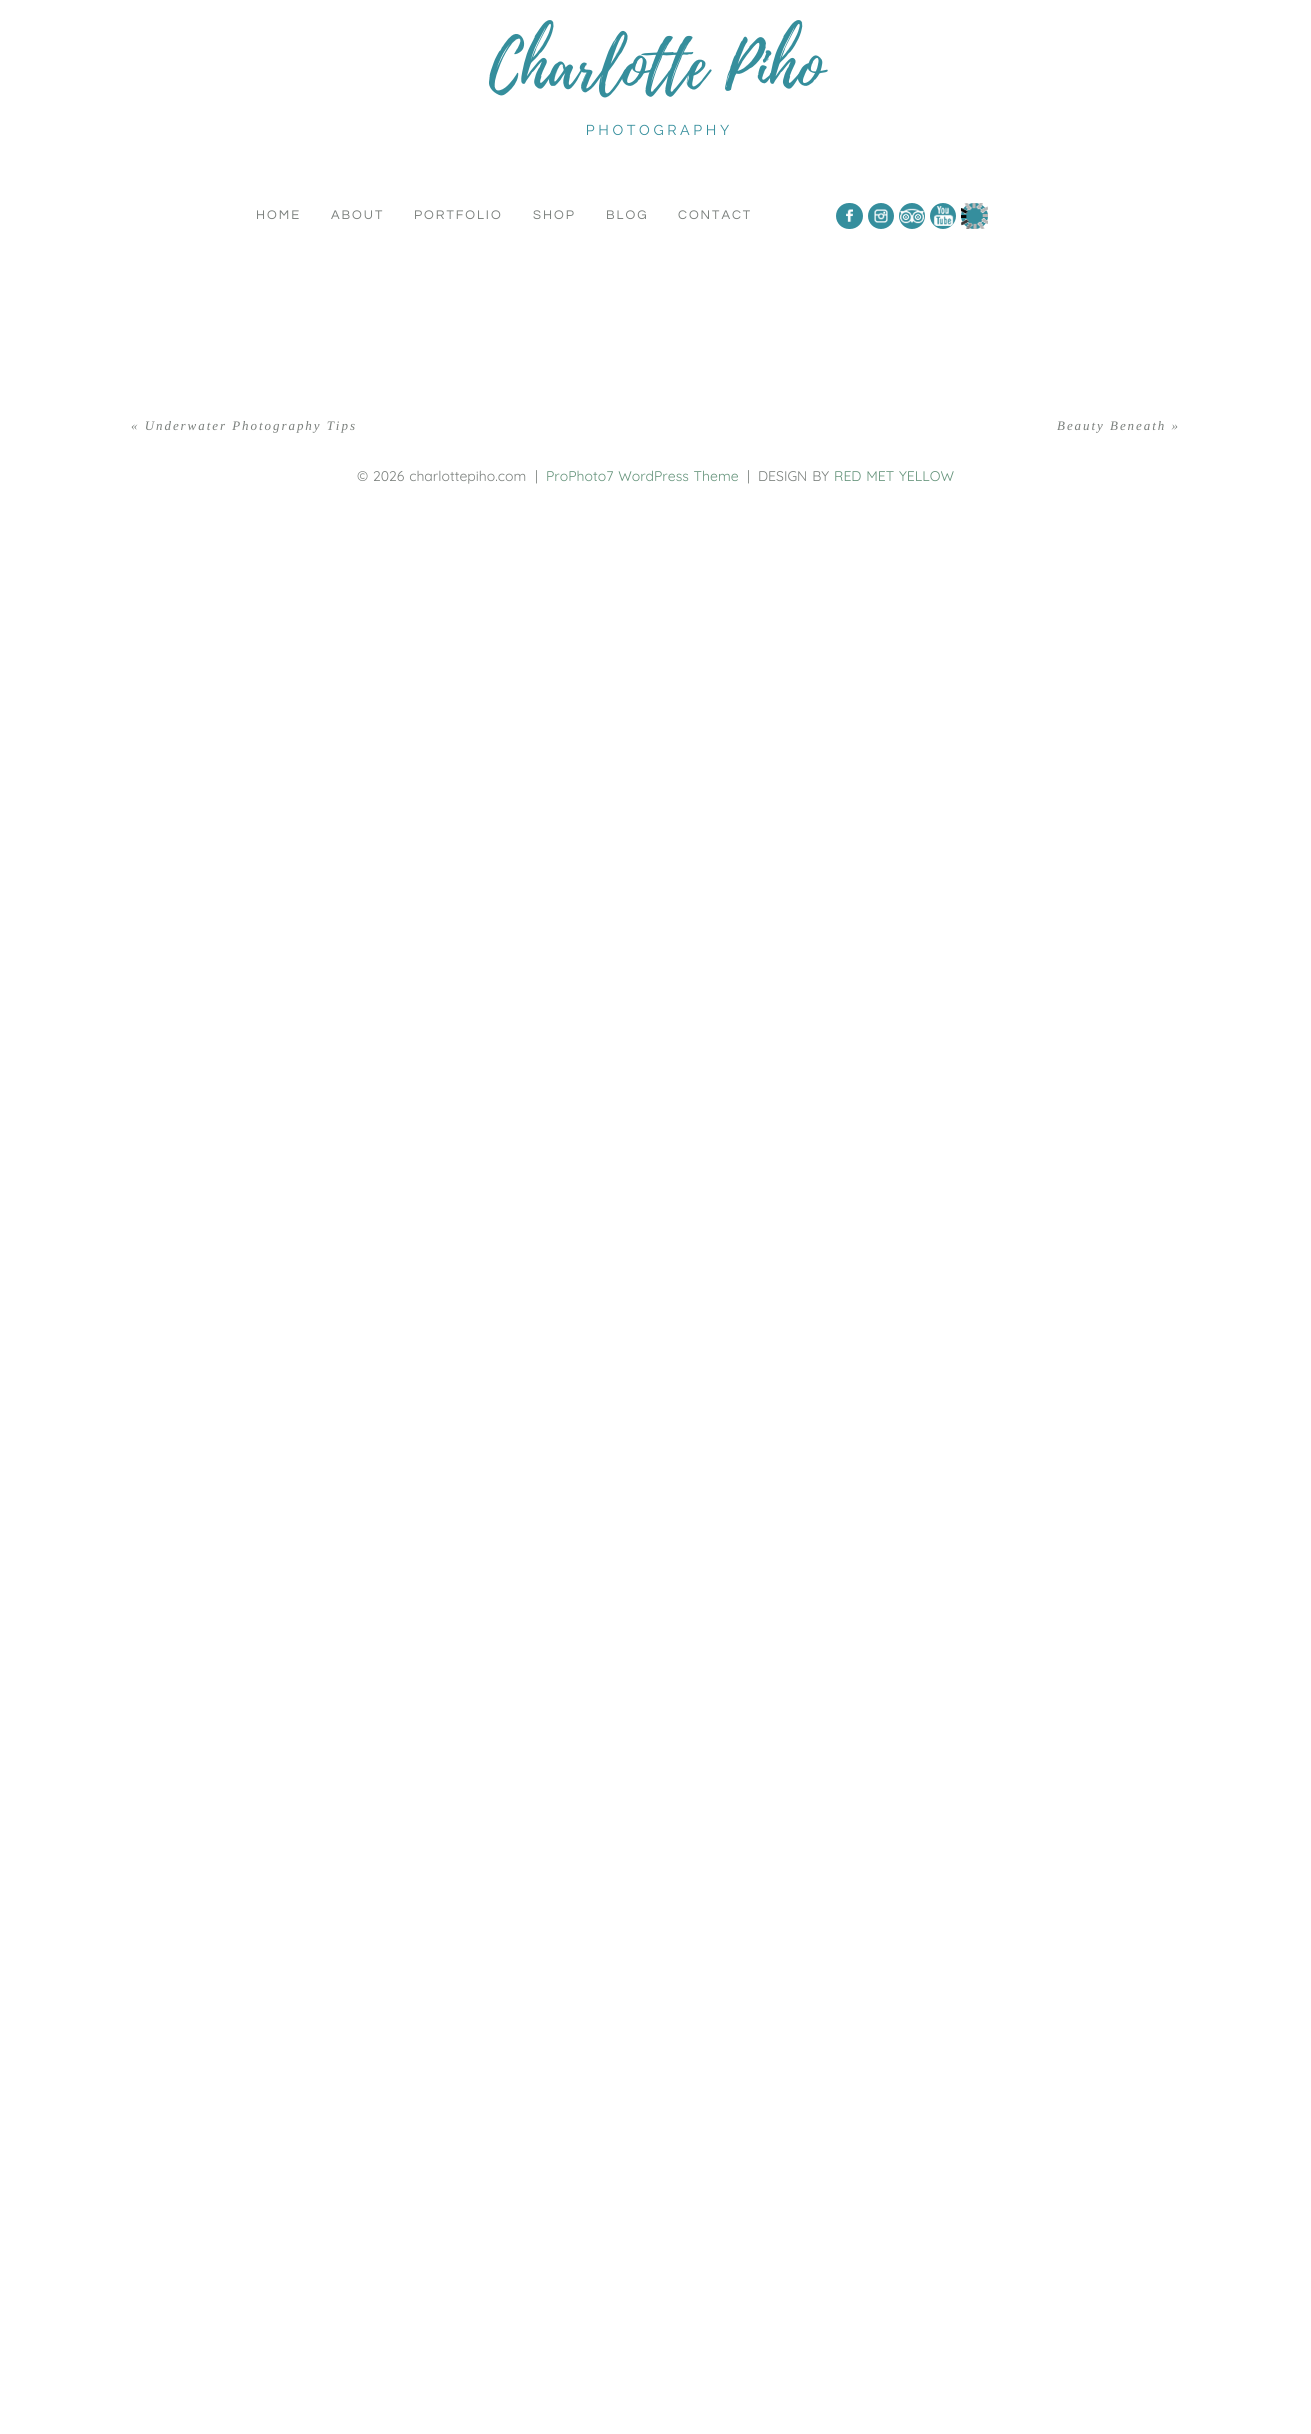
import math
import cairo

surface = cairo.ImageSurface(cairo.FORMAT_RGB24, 1311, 2434)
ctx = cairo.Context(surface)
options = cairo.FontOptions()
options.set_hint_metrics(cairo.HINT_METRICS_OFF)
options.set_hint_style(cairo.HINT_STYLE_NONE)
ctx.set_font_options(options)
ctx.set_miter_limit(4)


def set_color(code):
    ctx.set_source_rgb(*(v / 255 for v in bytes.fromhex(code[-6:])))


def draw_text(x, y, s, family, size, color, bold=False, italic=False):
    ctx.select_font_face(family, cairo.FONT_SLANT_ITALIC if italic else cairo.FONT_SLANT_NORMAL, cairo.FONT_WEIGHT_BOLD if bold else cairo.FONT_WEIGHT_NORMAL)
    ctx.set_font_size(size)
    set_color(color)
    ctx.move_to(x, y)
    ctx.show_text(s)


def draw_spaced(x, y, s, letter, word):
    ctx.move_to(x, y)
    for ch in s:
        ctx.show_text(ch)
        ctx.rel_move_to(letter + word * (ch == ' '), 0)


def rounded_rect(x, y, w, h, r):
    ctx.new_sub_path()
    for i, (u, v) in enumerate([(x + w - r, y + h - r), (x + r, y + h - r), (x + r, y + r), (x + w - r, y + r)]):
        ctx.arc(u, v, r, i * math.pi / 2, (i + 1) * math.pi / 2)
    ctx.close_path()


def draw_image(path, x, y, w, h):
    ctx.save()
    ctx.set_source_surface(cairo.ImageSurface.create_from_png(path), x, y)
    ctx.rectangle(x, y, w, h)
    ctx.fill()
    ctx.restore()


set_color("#ffffff")
ctx.paint()
draw_image("assets/img1.png", 489, 20, 339, 116)
ctx.select_font_face("Questrial")
ctx.set_font_size(13)
set_color("#7a7f7c")
draw_spaced(256, 219, "HOME", 1.95, 0)
draw_spaced(331, 219, "ABOUT", 1.95, 0)
draw_spaced(414, 219, "PORTFOLIO", 1.95, 0)
draw_spaced(533, 219, "SHOP", 1.95, 0)
draw_spaced(606, 219, "BLOG", 1.95, 0)
draw_spaced(678, 219, "CONTACT", 1.95, 0)
set_color("#358e9d")
rounded_rect(836, 203, 27, 26, 13)
ctx.fill()
draw_image("assets/img2.png", 846, 209, 7, 13)
ctx.arc(881, 216, 13, 0, 2 * math.pi)
ctx.fill()
draw_image("assets/img3.png", 874, 209, 14, 14)
ctx.arc(912, 216, 13, 0, 2 * math.pi)
ctx.fill()
draw_image("assets/img4.png", 900, 208, 24, 16)
ctx.arc(943, 216, 13, 0, 2 * math.pi)
ctx.fill()
draw_image("assets/img5.png", 933, 206, 21, 20)
rounded_rect(961, 203, 27, 26, 13)
ctx.fill()
draw_image("assets/img6.png", 961, 203, 27, 26)
ctx.select_font_face("Liberation Serif", cairo.FONT_SLANT_ITALIC)
set_color("#7a7f7c")
draw_spaced(131, 430, "« Underwater Photography Tips", 1.95, 0)
draw_spaced(1057, 430, "Beauty Beneath »", 1.95, 0)
ctx.select_font_face("Quicksand Light")
ctx.set_font_size(14)
draw_spaced(357, 481, "© 2026 charlottepiho.com", 0, 1)
draw_text(535, 481, "|", "Quicksand Light", 14, "#7a7f7c")
set_color("#64937a")
draw_spaced(546, 481, "ProPhoto7 WordPress Theme", 0, 1)
draw_text(747, 481, "|", "Quicksand Light", 14, "#7a7f7c")
draw_spaced(758, 481, "DESIGN BY", 0, 1)
set_color("#64937a")
draw_spaced(834, 481, "RED MET YELLOW", 0, 1)
surface.write_to_png("output.png")
